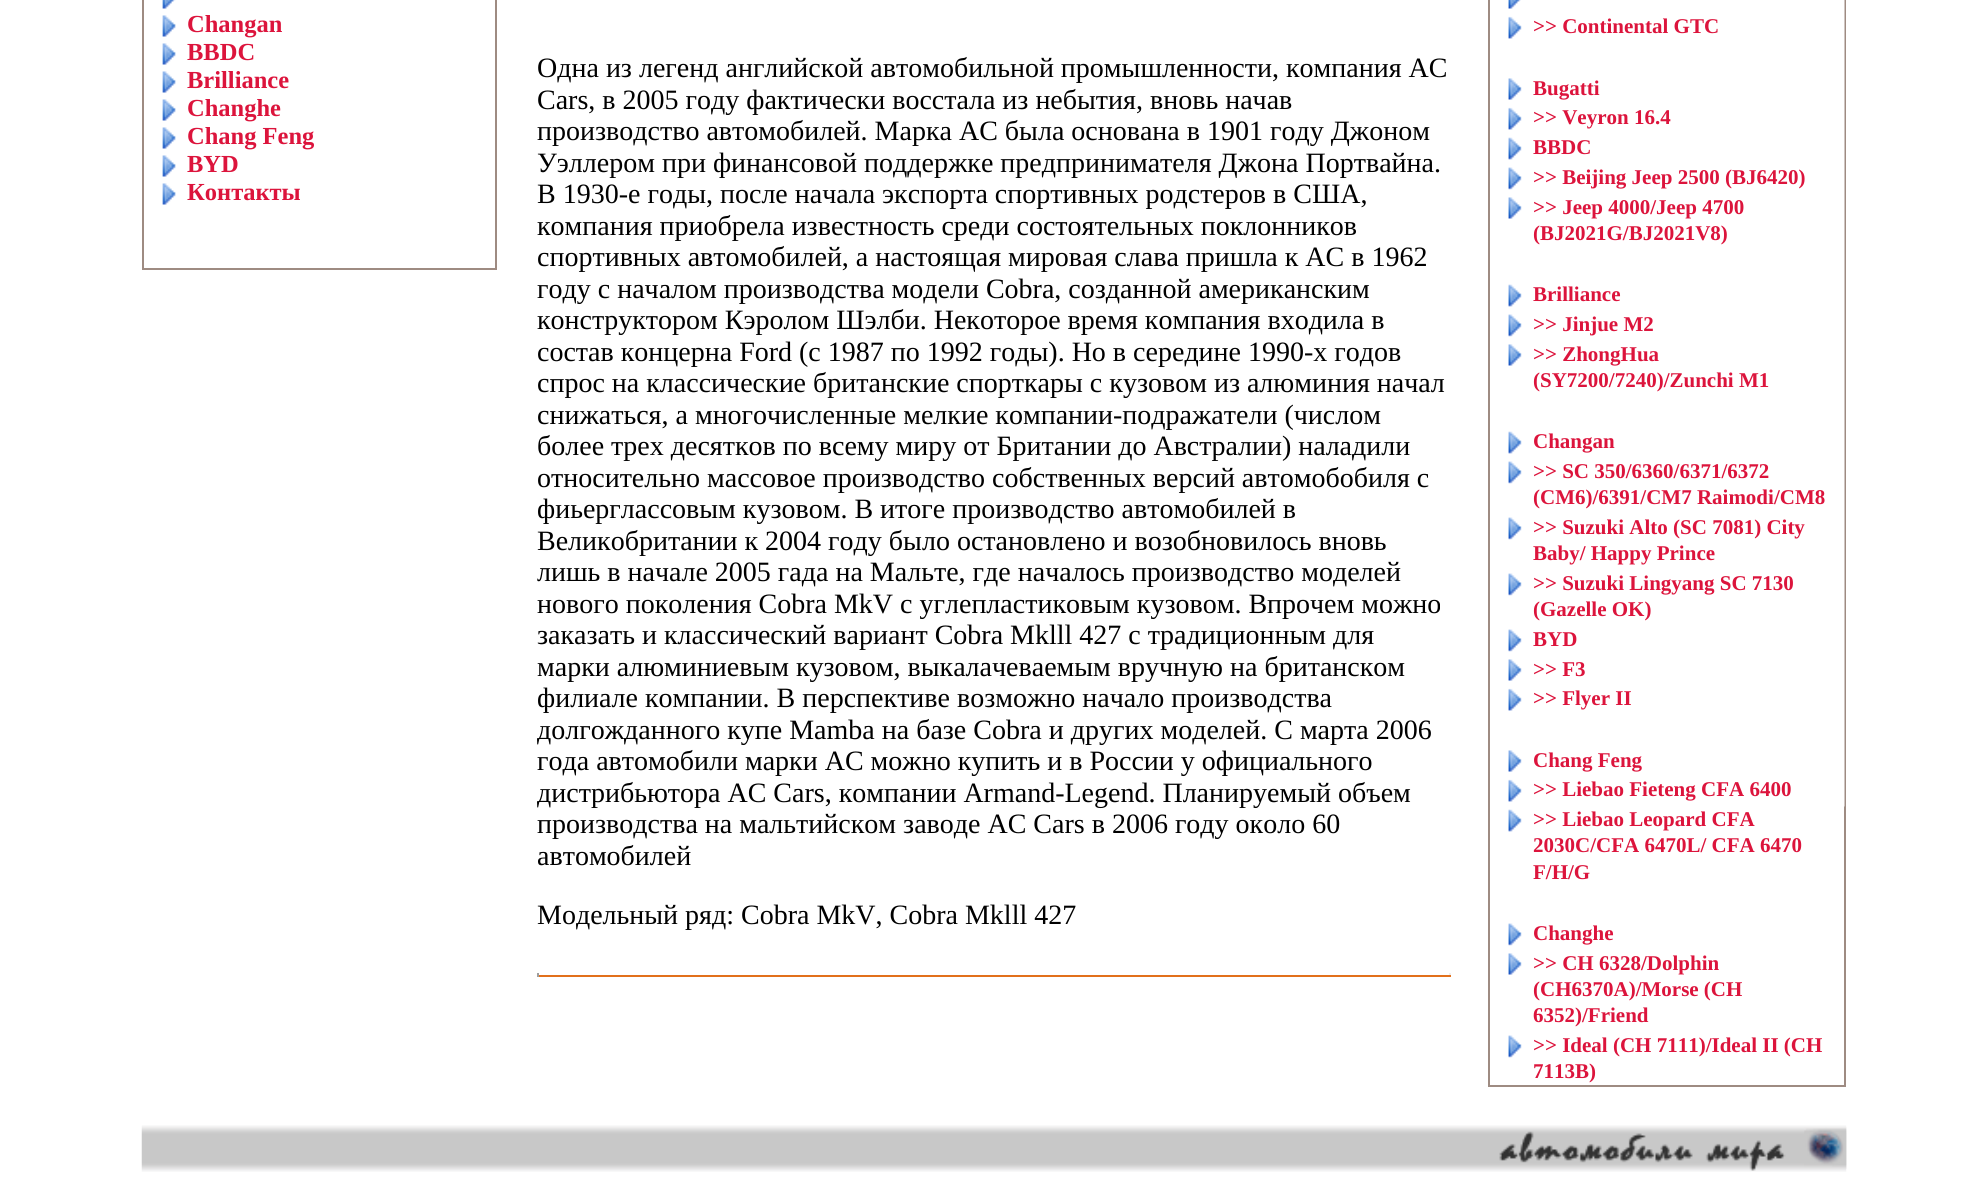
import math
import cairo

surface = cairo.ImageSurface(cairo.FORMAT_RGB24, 1987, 1196)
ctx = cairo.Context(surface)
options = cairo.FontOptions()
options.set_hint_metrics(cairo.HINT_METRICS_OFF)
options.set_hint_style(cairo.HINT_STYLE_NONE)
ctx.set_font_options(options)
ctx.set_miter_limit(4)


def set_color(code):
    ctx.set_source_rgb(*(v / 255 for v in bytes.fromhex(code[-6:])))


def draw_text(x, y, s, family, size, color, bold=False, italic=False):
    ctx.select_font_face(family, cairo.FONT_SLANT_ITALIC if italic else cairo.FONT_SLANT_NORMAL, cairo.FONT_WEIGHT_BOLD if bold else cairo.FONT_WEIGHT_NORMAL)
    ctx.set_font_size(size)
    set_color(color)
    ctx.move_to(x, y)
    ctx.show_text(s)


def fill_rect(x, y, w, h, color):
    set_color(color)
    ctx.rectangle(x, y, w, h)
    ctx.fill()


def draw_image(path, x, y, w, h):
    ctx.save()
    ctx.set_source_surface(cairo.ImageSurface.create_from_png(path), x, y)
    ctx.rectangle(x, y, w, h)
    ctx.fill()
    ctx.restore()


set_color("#ffffff")
ctx.paint()
ctx.rectangle(143, -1, 353, 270)
set_color("#9e8b82")
ctx.stroke()
draw_image("assets/img1.png", 162, 0, 14, 9)
draw_image("assets/img2.png", 162, 15, 14, 22)
draw_text(187, 32, "Changan", "Liberation Serif", 24.5, "#dc143c", bold=True)
draw_image("assets/img2.png", 162, 43, 14, 22)
draw_text(187, 60, "BBDC", "Liberation Serif", 24.5, "#dc143c", bold=True)
draw_image("assets/img2.png", 162, 71, 14, 22)
draw_text(187, 88, "Brilliance", "Liberation Serif", 24.5, "#dc143c", bold=True)
draw_image("assets/img2.png", 162, 99, 14, 22)
draw_text(187, 116, "Changhe", "Liberation Serif", 24.5, "#dc143c", bold=True)
draw_image("assets/img2.png", 162, 127, 14, 22)
draw_text(187, 144, "Chang Feng", "Liberation Serif", 24.5, "#dc143c", bold=True)
draw_image("assets/img2.png", 162, 155, 14, 22)
draw_text(187, 172, "BYD", "Liberation Serif", 24.5, "#dc143c", bold=True)
draw_image("assets/img2.png", 162, 183, 14, 22)
draw_text(187, 200, "Контакты", "Liberation Serif", 24.5, "#dc143c", bold=True)
draw_text(537, 77, "Одна из легенд английской автомобильной промышленности, компания AC", "Liberation Serif", 28, "#000000")
draw_text(537, 109, "Cars, в 2005 году фактически восстала из небытия, вновь начав", "Liberation Serif", 28, "#000000")
draw_text(537, 140, "производство автомобилей. Марка АС была основана в 1901 году Джоном", "Liberation Serif", 28, "#000000")
draw_text(537, 172, "Уэллером при финансовой поддержке предпринимателя Джона Портвайна.", "Liberation Serif", 28, "#000000")
draw_text(537, 203, "В 1930-е годы, после начала экспорта спортивных родстеров в США,", "Liberation Serif", 28, "#000000")
draw_text(537, 235, "компания приобрела известность среди состоятельных поклонников", "Liberation Serif", 28, "#000000")
draw_text(537, 266, "спортивных автомобилей, а настоящая мировая слава пришла к АС в 1962", "Liberation Serif", 28, "#000000")
draw_text(537, 298, "году с началом производства модели Cobra, созданной американским", "Liberation Serif", 28, "#000000")
draw_text(537, 329, "конструктором Кэролом Шэлби. Некоторое время компания входила в", "Liberation Serif", 28, "#000000")
draw_text(537, 361, "состав концерна Ford (с 1987 по 1992 годы). Но в середине 1990-х годов", "Liberation Serif", 28, "#000000")
draw_text(537, 392, "спрос на классические британские спорткары с кузовом из алюминия начал", "Liberation Serif", 28, "#000000")
draw_text(537, 424, "снижаться, а многочисленные мелкие компании-подражатели (числом", "Liberation Serif", 28, "#000000")
draw_text(537, 455, "более трех десятков по всему миру от Британии до Австралии) наладили", "Liberation Serif", 28, "#000000")
draw_text(537, 487, "относительно массовое производство собственных версий автомобобиля с", "Liberation Serif", 28, "#000000")
draw_text(537, 518, "фиьерглассовым кузовом. В итоге производство автомобилей в", "Liberation Serif", 28, "#000000")
draw_text(537, 550, "Великобритании к 2004 году было остановлено и возобновилось вновь", "Liberation Serif", 28, "#000000")
draw_text(537, 581, "лишь в начале 2005 гада на Мальте, где началось производство моделей", "Liberation Serif", 28, "#000000")
draw_text(537, 613, "нового поколения Cobra MkV с углепластиковым кузовом. Впрочем можно", "Liberation Serif", 28, "#000000")
draw_text(537, 644, "заказать и классический вариант Cobra Mklll 427 с традиционным для", "Liberation Serif", 28, "#000000")
draw_text(537, 676, "марки алюминиевым кузовом, выкалачеваемым вручную на британском", "Liberation Serif", 28, "#000000")
draw_text(537, 707, "филиале компании. В перспективе возможно начало производства", "Liberation Serif", 28, "#000000")
draw_text(537, 739, "долгожданного купе Mamba на базе Cobra и других моделей. С марта 2006", "Liberation Serif", 28, "#000000")
draw_text(537, 770, "года автомобили марки АС можно купить и в России у официального", "Liberation Serif", 28, "#000000")
draw_text(537, 802, "дистрибьютора AC Cars, компании Armand-Legend. Планируемый объем", "Liberation Serif", 28, "#000000")
draw_text(537, 833, "производства на мальтийском заводе AC Cars в 2006 году около 60", "Liberation Serif", 28, "#000000")
draw_text(537, 865, "автомобилей", "Liberation Serif", 28, "#000000")
draw_text(537, 924, "Модельный ряд: Cobra MkV, Cobra Mklll 427", "Liberation Serif", 28, "#000000")
fill_rect(1449, 973, 2, 4, "#eeeeee")
fill_rect(537, 975, 914, 2, "#e2701b")
fill_rect(537, 973, 2, 4, "#9f9f9f")
ctx.rectangle(1489, -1, 356, 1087)
set_color("#9e8b82")
ctx.stroke()
draw_image("assets/img3.png", 1508, 0, 13, 9)
draw_image("assets/img4.png", 1508, 16, 14, 23)
draw_text(1533, 33, ">> Continental GTC", "Liberation Serif", 21, "#dc143c", bold=True)
draw_image("assets/img5.png", 1508, 78, 14, 22)
draw_text(1533, 95, "Bugatti", "Liberation Serif", 21, "#dc143c", bold=True)
draw_image("assets/img4.png", 1508, 107, 14, 23)
draw_text(1533, 124, ">> Veyron 16.4", "Liberation Serif", 21, "#dc143c", bold=True)
draw_image("assets/img6.png", 1508, 137, 14, 23)
draw_text(1533, 154, "BBDC", "Liberation Serif", 21, "#dc143c", bold=True)
draw_image("assets/img7.png", 1508, 167, 14, 23)
draw_text(1533, 184, ">> Beijing Jeep 2500 (BJ6420)", "Liberation Serif", 21, "#dc143c", bold=True)
draw_image("assets/img5.png", 1508, 197, 14, 22)
draw_text(1533, 214, ">> Jeep 4000/Jeep 4700", "Liberation Serif", 21, "#dc143c", bold=True)
draw_text(1533, 240, "(BJ2021G/BJ2021V8)", "Liberation Serif", 21, "#dc143c", bold=True)
draw_image("assets/img6.png", 1508, 284, 14, 23)
draw_text(1533, 301, "Brilliance", "Liberation Serif", 21, "#dc143c", bold=True)
draw_image("assets/img7.png", 1508, 314, 14, 23)
draw_text(1533, 331, ">> Jinjue M2", "Liberation Serif", 21, "#dc143c", bold=True)
draw_image("assets/img5.png", 1508, 344, 14, 22)
draw_text(1533, 361, ">> ZhongHua", "Liberation Serif", 21, "#dc143c", bold=True)
draw_text(1533, 387, "(SY7200/7240)/Zunchi M1", "Liberation Serif", 21, "#dc143c", bold=True)
draw_image("assets/img6.png", 1508, 431, 14, 23)
draw_text(1533, 448, "Changan", "Liberation Serif", 21, "#dc143c", bold=True)
draw_image("assets/img7.png", 1508, 461, 14, 23)
draw_text(1533, 478, ">> SC 350/6360/6371/6372", "Liberation Serif", 21, "#dc143c", bold=True)
draw_text(1533, 504, "(CM6)/6391/CM7 Raimodi/CM8", "Liberation Serif", 21, "#dc143c", bold=True)
draw_image("assets/img7.png", 1508, 517, 14, 23)
draw_text(1533, 534, ">> Suzuki Alto (SC 7081) City", "Liberation Serif", 21, "#dc143c", bold=True)
draw_text(1533, 560, "Baby/ Happy Prince", "Liberation Serif", 21, "#dc143c", bold=True)
draw_image("assets/img7.png", 1508, 573, 14, 23)
draw_text(1533, 590, ">> Suzuki Lingyang SC 7130", "Liberation Serif", 21, "#dc143c", bold=True)
draw_text(1533, 616, "(Gazelle OK)", "Liberation Serif", 21, "#dc143c", bold=True)
draw_image("assets/img7.png", 1508, 629, 14, 23)
draw_text(1533, 646, "BYD", "Liberation Serif", 21, "#dc143c", bold=True)
draw_image("assets/img5.png", 1508, 659, 14, 22)
draw_text(1533, 676, ">> F3", "Liberation Serif", 21, "#dc143c", bold=True)
draw_image("assets/img4.png", 1508, 688, 14, 23)
draw_text(1533, 705, ">> Flyer II", "Liberation Serif", 21, "#dc143c", bold=True)
draw_image("assets/img5.png", 1508, 750, 14, 22)
draw_text(1533, 767, "Chang Feng", "Liberation Serif", 21, "#dc143c", bold=True)
draw_image("assets/img4.png", 1508, 779, 14, 23)
draw_text(1533, 796, ">> Liebao Fieteng CFA 6400", "Liberation Serif", 21, "#dc143c", bold=True)
draw_image("assets/img6.png", 1508, 809, 14, 23)
draw_text(1533, 826, ">> Liebao Leopard CFA", "Liberation Serif", 21, "#dc143c", bold=True)
draw_text(1533, 852, "2030C/CFA 6470L/ CFA 6470", "Liberation Serif", 21, "#dc143c", bold=True)
draw_text(1533, 879, "F/H/G", "Liberation Serif", 21, "#dc143c", bold=True)
draw_image("assets/img7.png", 1508, 923, 14, 23)
draw_text(1533, 940, "Changhe", "Liberation Serif", 21, "#dc143c", bold=True)
draw_image("assets/img5.png", 1508, 953, 14, 22)
draw_text(1533, 970, ">> CH 6328/Dolphin", "Liberation Serif", 21, "#dc143c", bold=True)
draw_text(1533, 996, "(CH6370A)/Morse (CH", "Liberation Serif", 21, "#dc143c", bold=True)
draw_text(1533, 1022, "6352)/Friend", "Liberation Serif", 21, "#dc143c", bold=True)
draw_image("assets/img7.png", 1508, 1035, 14, 23)
draw_text(1533, 1052, ">> Ideal (CH 7111)/Ideal II (CH", "Liberation Serif", 21, "#dc143c", bold=True)
draw_text(1533, 1078, "7113B)", "Liberation Serif", 21, "#dc143c", bold=True)
draw_image("assets/img8.png", 1844, 0, 1, 807)
draw_image("assets/img9.png", 141, 1125, 1706, 47)
draw_image("assets/img10.png", 1499, 1131, 287, 40)
draw_image("assets/img11.png", 1804, 1127, 43, 42)
surface.write_to_png("output.png")
